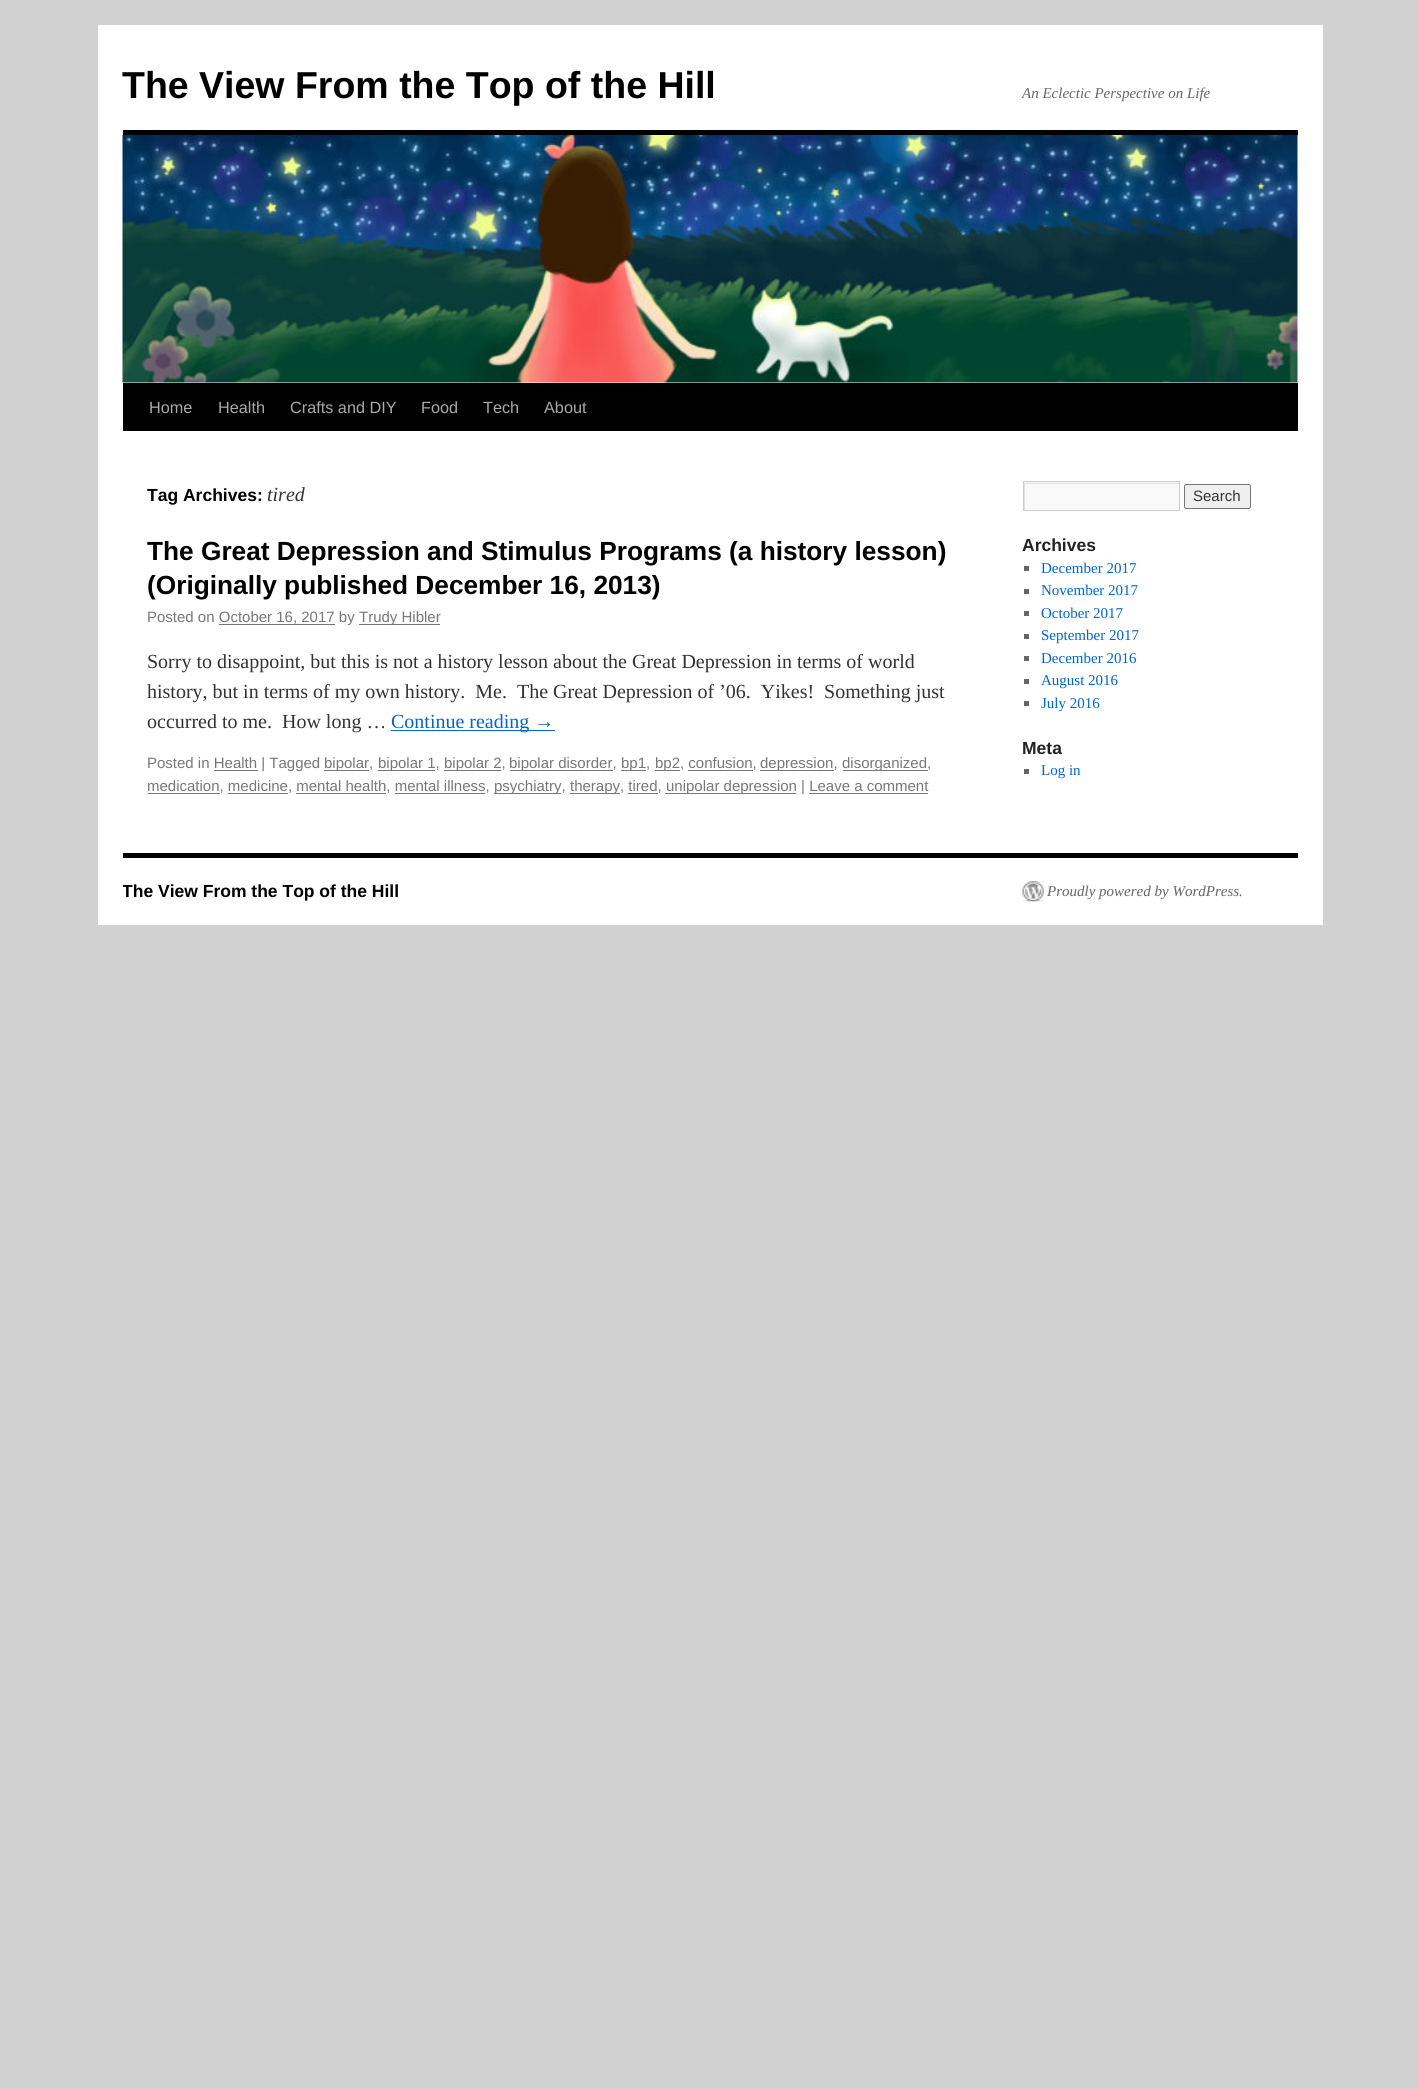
import math
import cairo

surface = cairo.ImageSurface(cairo.FORMAT_RGB24, 1418, 2089)
ctx = cairo.Context(surface)
options = cairo.FontOptions()
options.set_hint_metrics(cairo.HINT_METRICS_OFF)
options.set_hint_style(cairo.HINT_STYLE_NONE)
ctx.set_font_options(options)
ctx.set_miter_limit(4)


def set_color(code):
    ctx.set_source_rgb(*(v / 255 for v in bytes.fromhex(code[-6:])))


def draw_text(x, y, s, family, size, color, bold=False, italic=False):
    ctx.select_font_face(family, cairo.FONT_SLANT_ITALIC if italic else cairo.FONT_SLANT_NORMAL, cairo.FONT_WEIGHT_BOLD if bold else cairo.FONT_WEIGHT_NORMAL)
    ctx.set_font_size(size)
    set_color(color)
    ctx.move_to(x, y)
    ctx.show_text(s)


def fill_rect(x, y, w, h, color):
    set_color(color)
    ctx.rectangle(x, y, w, h)
    ctx.fill()


def rounded_rect(x, y, w, h, r):
    ctx.new_sub_path()
    for i, (u, v) in enumerate([(x + w - r, y + h - r), (x + r, y + h - r), (x + r, y + r), (x + w - r, y + r)]):
        ctx.arc(u, v, r, i * math.pi / 2, (i + 1) * math.pi / 2)
    ctx.close_path()


def draw_image(path, x, y, w, h):
    ctx.save()
    ctx.set_source_surface(cairo.ImageSurface.create_from_png(path), x, y)
    ctx.rectangle(x, y, w, h)
    ctx.fill()
    ctx.restore()


set_color("#d1d1d1")
ctx.paint()
fill_rect(98, 25, 1225, 900, "#ffffff")
draw_text(122, 98, "The View From the Top of the Hill", "Liberation Sans", 37.5, "#000000", bold=True)
draw_text(1022, 98, "An Eclectic Perspective on Life", "Liberation Serif", 15, "#666666", italic=True)
fill_rect(123, 130, 1175, 5, "#000000")
fill_rect(123, 383, 1175, 48, "#000000")
draw_image("assets/img1.png", 122, 135, 1176, 248)
draw_text(149, 413, "Home", "Liberation Sans", 16.25, "#aaaaaa")
draw_text(218, 413, "Health", "Liberation Sans", 16.25, "#aaaaaa")
draw_text(290, 413, "Crafts and DIY", "Liberation Sans", 16.25, "#aaaaaa")
draw_text(421, 413, "Food", "Liberation Sans", 16.25, "#aaaaaa")
draw_text(483, 413, "Tech", "Liberation Sans", 16.25, "#aaaaaa")
draw_text(544, 413, "About", "Liberation Sans", 16.25, "#aaaaaa")
draw_text(147, 501, "Tag Archives:", "Liberation Sans", 17.5, "#000000", bold=True)
draw_text(267, 501, "tired", "Liberation Serif", 20, "#333333", italic=True)
draw_text(147, 560, "The Great Depression and Stimulus Programs (a history lesson)", "Liberation Sans", 26.25, "#000000", bold=True)
draw_text(147, 594, "(Originally published December 16, 2013)", "Liberation Sans", 26.25, "#000000", bold=True)
draw_text(147, 622, "Posted on October 16, 2017 by", "Liberation Sans", 15, "#777777")
fill_rect(359, 624, 81, 1, "#777777")
draw_text(359, 622, "Trudy Hibler", "Liberation Sans", 15, "#777777")
fill_rect(219, 624, 116, 1, "#777777")
draw_text(147, 668, "Sorry to disappoint, but this is not a history lesson about the Great Depression in terms of world", "Liberation Serif", 20, "#333333")
draw_text(147, 698, "history, but in terms of my own history.  Me.  The Great Depression of ’06.  Yikes!  Something just", "Liberation Serif", 20, "#333333")
draw_text(147, 728, "occurred to me.  How long …", "Liberation Serif", 20, "#333333")
fill_rect(391, 730, 164, 1, "#0066cc")
draw_text(391, 728, "Continue reading →", "Liberation Serif", 20, "#0066cc")
draw_text(147, 768, "Posted in Health | Tagged", "Liberation Sans", 15, "#777777")
fill_rect(214, 770, 44, 1, "#777777")
fill_rect(324, 770, 45, 1, "#777777")
draw_text(324, 768, "bipolar,", "Liberation Sans", 15, "#777777")
fill_rect(378, 770, 57, 1, "#777777")
draw_text(378, 768, "bipolar 1,", "Liberation Sans", 15, "#777777")
fill_rect(444, 770, 57, 1, "#777777")
draw_text(444, 768, "bipolar 2,", "Liberation Sans", 15, "#777777")
fill_rect(510, 770, 103, 1, "#777777")
draw_text(509, 768, "bipolar disorder,", "Liberation Sans", 15, "#777777")
fill_rect(621, 770, 25, 1, "#777777")
draw_text(621, 768, "bp1,", "Liberation Sans", 15, "#777777")
fill_rect(655, 770, 25, 1, "#777777")
draw_text(655, 768, "bp2, confusion,", "Liberation Sans", 15, "#777777")
fill_rect(688, 770, 65, 1, "#777777")
fill_rect(760, 770, 74, 1, "#777777")
draw_text(760, 768, "depression,", "Liberation Sans", 15, "#777777")
fill_rect(843, 770, 85, 1, "#777777")
draw_text(842, 768, "disorganized,", "Liberation Sans", 15, "#777777")
draw_text(147, 791, "medication, medicine, mental health, mental illness,", "Liberation Sans", 15, "#777777")
fill_rect(148, 793, 72, 1, "#777777")
fill_rect(228, 793, 60, 1, "#777777")
fill_rect(296, 793, 90, 1, "#777777")
fill_rect(395, 793, 90, 1, "#777777")
fill_rect(494, 793, 67, 1, "#777777")
draw_text(494, 791, "psychiatry,", "Liberation Sans", 15, "#777777")
fill_rect(570, 793, 50, 1, "#777777")
draw_text(570, 791, "therapy, tired,", "Liberation Sans", 15, "#777777")
fill_rect(628, 793, 30, 1, "#777777")
fill_rect(665, 793, 131, 1, "#777777")
draw_text(666, 791, "unipolar depression | Leave a comment", "Liberation Sans", 15, "#777777")
fill_rect(809, 793, 119, 1, "#777777")
fill_rect(1024, 482, 155, 28, "#f9f9f9")
ctx.save()
ctx.rectangle(1024, 483, 155, 27)
ctx.clip()
set_color("#e0e0e0")
ctx.set_fill_rule(cairo.FILL_RULE_EVEN_ODD)
ctx.new_path()
ctx.move_to(900, 359)
ctx.line_to(1302, 359)
ctx.line_to(1302, 634)
ctx.line_to(900, 634)
ctx.close_path()
ctx.move_to(1025, 484)
ctx.line_to(1180, 484)
ctx.line_to(1180, 511)
ctx.line_to(1025, 511)
ctx.close_path()
ctx.fill()
ctx.restore()
ctx.rectangle(1023.5, 481.5, 156, 29)
set_color("#cccccc")
ctx.set_line_width(1)
ctx.stroke()
set_color("#efefef")
rounded_rect(1184.5, 484.5, 66, 24, 2)
ctx.fill_preserve()
set_color("#767676")
ctx.stroke()
draw_text(1193, 501, "Search", "Liberation Sans", 15, "#333333")
draw_text(1022, 551, "Archives", "Liberation Sans", 17.5, "#222222", bold=True)
fill_rect(1024, 566, 5, 5, "#666666")
draw_text(1041, 573, "December 2017", "Liberation Serif", 15, "#0066cc")
fill_rect(1024, 589, 5, 5, "#666666")
draw_text(1041, 595, "November 2017", "Liberation Serif", 15, "#0066cc")
fill_rect(1024, 611, 5, 5, "#666666")
draw_text(1041, 618, "October 2017", "Liberation Serif", 15, "#0066cc")
fill_rect(1024, 634, 5, 5, "#666666")
draw_text(1041, 640, "September 2017", "Liberation Serif", 15, "#0066cc")
fill_rect(1024, 656, 5, 5, "#666666")
draw_text(1041, 663, "December 2016", "Liberation Serif", 15, "#0066cc")
fill_rect(1024, 679, 5, 5, "#666666")
draw_text(1041, 685, "August 2016", "Liberation Serif", 15, "#0066cc")
fill_rect(1024, 701, 5, 5, "#666666")
draw_text(1041, 708, "July 2016", "Liberation Serif", 15, "#0066cc")
draw_text(1022, 754, "Meta", "Liberation Sans", 17.5, "#222222", bold=True)
fill_rect(1024, 769, 5, 5, "#666666")
draw_text(1041, 775, "Log in", "Liberation Serif", 15, "#0066cc")
fill_rect(123, 853, 1175, 5, "#000000")
ctx.save()
ctx.rectangle(123, 858, 1175, 67)
ctx.clip()
draw_text(122, 897, "The View From the Top of the Hill", "Liberation Sans", 17.5, "#000000", bold=True)
ctx.restore()
draw_image("assets/img2.png", 1022, 881, 22, 21)
draw_text(1047, 896, "Proudly powered by WordPress.", "Liberation Serif", 15, "#666666", italic=True)
surface.write_to_png("output.png")
